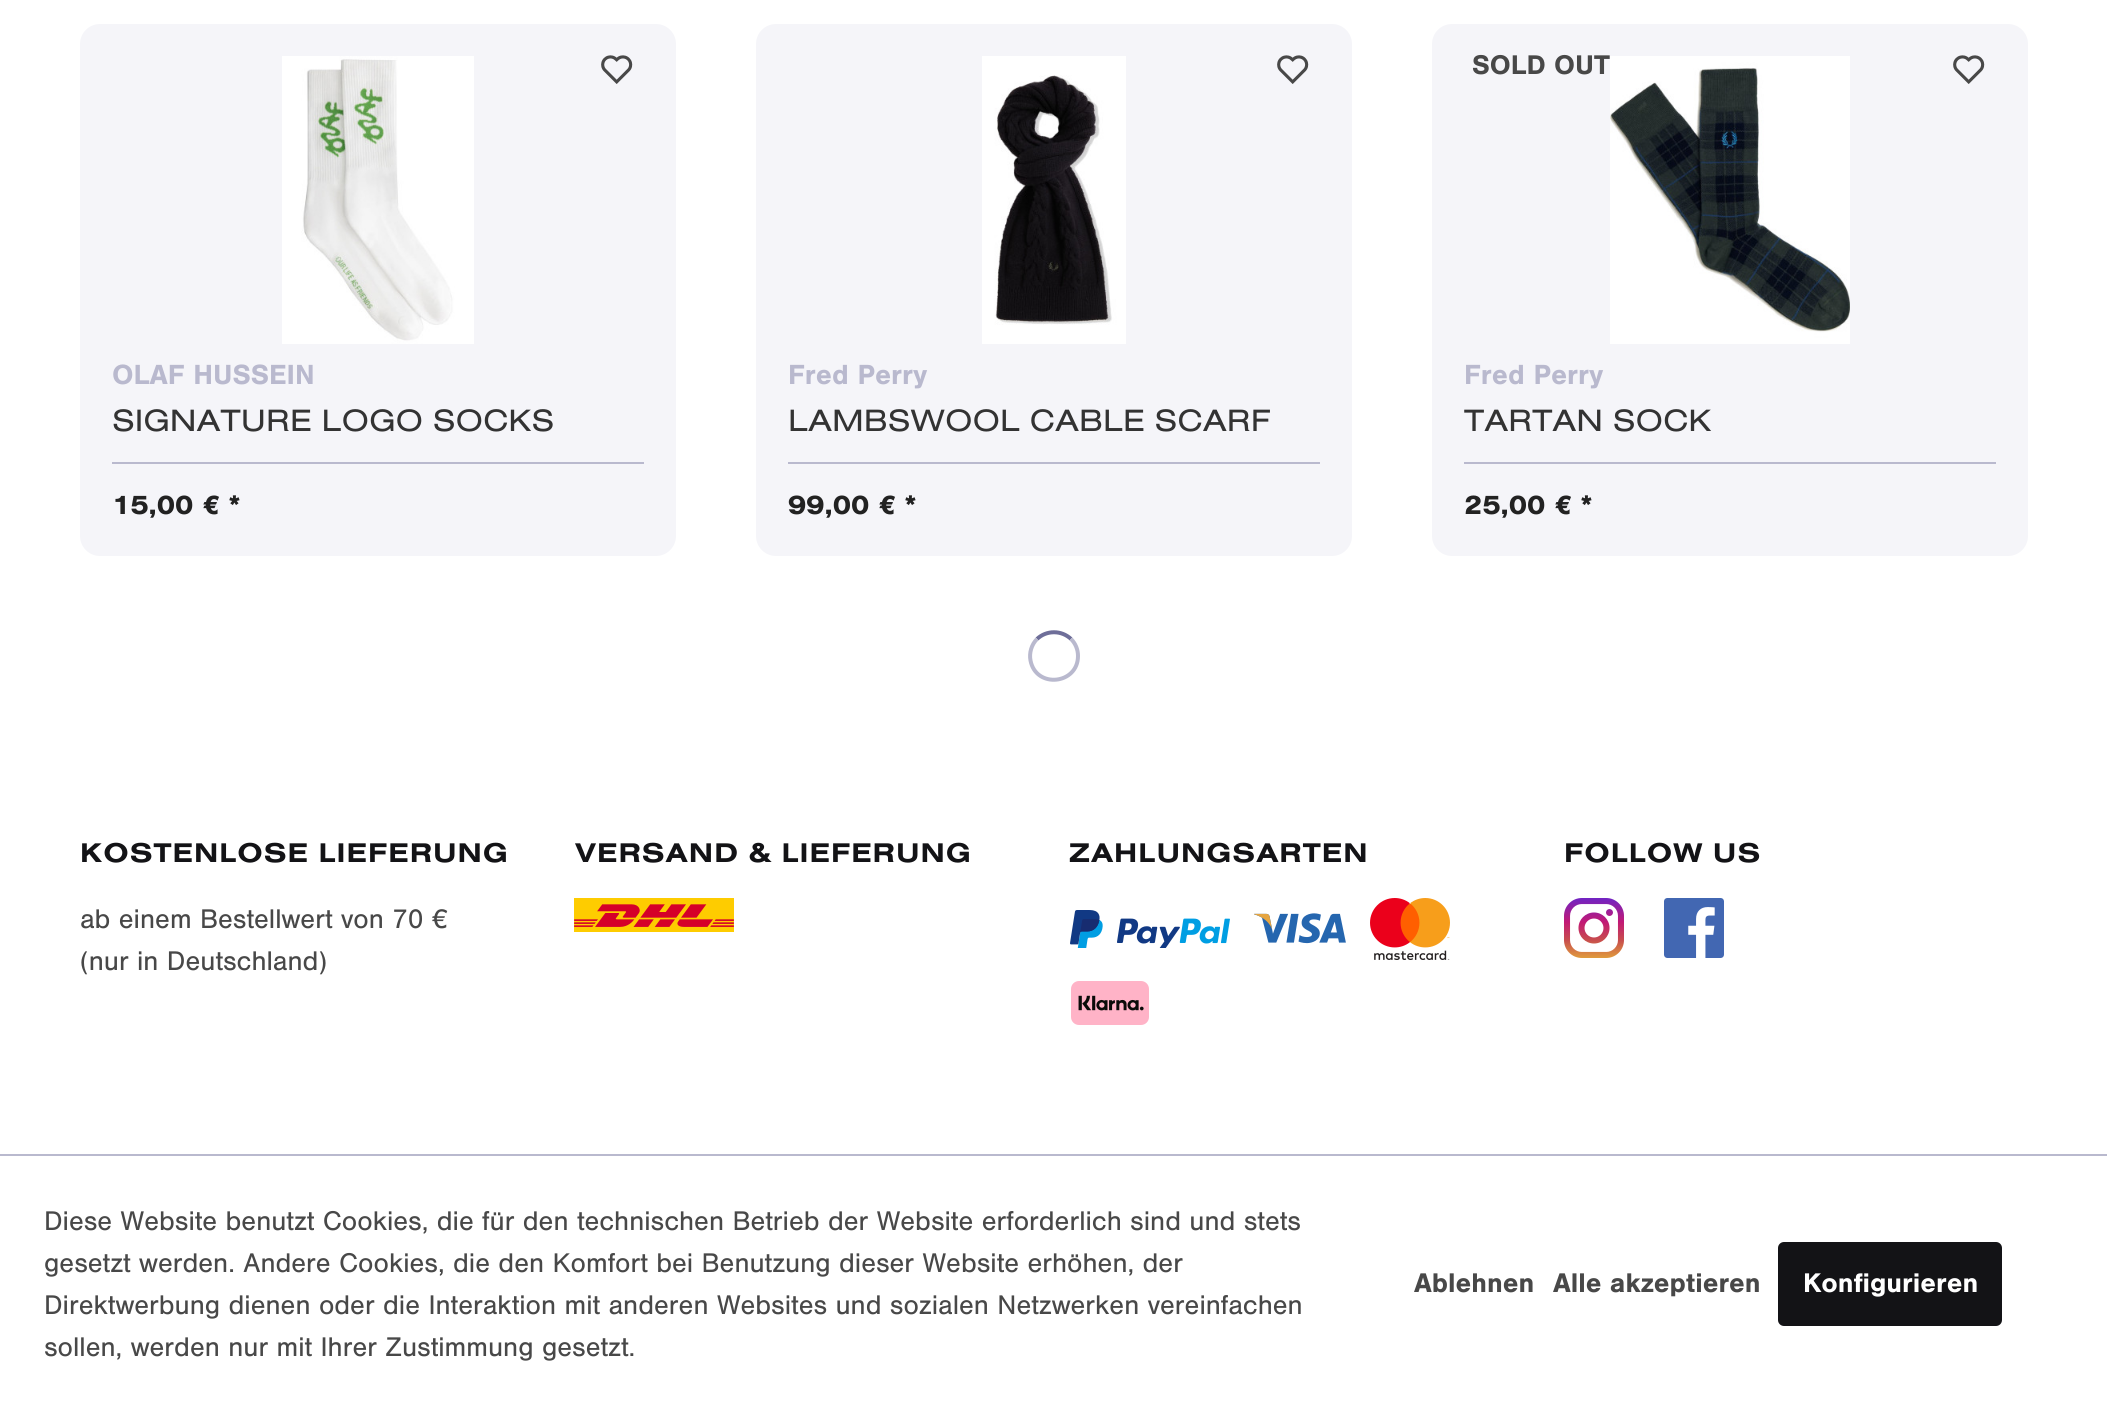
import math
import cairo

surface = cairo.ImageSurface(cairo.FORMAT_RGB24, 2107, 1411)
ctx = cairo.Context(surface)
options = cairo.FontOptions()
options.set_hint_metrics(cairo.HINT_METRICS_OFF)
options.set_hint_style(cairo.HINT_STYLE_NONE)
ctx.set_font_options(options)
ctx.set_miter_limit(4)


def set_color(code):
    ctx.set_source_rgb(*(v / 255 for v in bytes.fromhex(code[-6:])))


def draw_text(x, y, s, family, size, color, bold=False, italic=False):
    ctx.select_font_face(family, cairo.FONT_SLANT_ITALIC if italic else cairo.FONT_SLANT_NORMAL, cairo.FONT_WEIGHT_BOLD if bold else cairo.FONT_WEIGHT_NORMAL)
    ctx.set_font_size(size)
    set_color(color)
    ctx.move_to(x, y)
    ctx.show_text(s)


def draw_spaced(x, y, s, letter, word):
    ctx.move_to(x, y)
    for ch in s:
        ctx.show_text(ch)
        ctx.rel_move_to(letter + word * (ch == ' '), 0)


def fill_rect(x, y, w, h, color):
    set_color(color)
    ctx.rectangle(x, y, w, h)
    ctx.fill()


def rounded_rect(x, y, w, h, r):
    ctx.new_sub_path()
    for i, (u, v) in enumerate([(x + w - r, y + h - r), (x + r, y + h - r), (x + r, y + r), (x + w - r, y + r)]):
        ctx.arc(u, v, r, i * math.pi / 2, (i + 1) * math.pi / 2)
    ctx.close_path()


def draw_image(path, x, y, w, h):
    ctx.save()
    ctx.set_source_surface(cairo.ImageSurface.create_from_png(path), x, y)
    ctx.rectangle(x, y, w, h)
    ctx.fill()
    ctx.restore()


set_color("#ffffff")
ctx.paint()
set_color("#f5f5f9")
rounded_rect(80, 24, 596, 532, 20)
ctx.fill()
draw_image("assets/img1.png", 282, 56, 192, 288)
draw_image("assets/img2.png", 601, 55, 32, 29)
draw_text(112, 384, "OLAF HUSSEIN", "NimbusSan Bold", 28.75, "#b9b9ce", bold=True)
draw_text(112, 431, "SIGNATURE LOGO SOCKS", "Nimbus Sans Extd", 32, "#333333")
fill_rect(112, 462, 532, 2, "#b9b9ce")
draw_text(112, 514, "15,00 € *", "Nimbus Sans Extd", 28, "#222222", bold=True)
set_color("#f5f5f9")
rounded_rect(756, 24, 596, 532, 20)
ctx.fill()
draw_image("assets/img3.png", 982, 56, 144, 288)
draw_image("assets/img2.png", 1277, 55, 32, 29)
draw_text(788, 384, "Fred Perry", "NimbusSan Bold", 28.75, "#b9b9ce", bold=True)
draw_text(788, 431, "LAMBSWOOL CABLE SCARF", "Nimbus Sans Extd", 32, "#333333")
fill_rect(788, 462, 532, 2, "#b9b9ce")
draw_text(788, 514, "99,00 € *", "Nimbus Sans Extd", 28, "#222222", bold=True)
set_color("#f5f5f9")
rounded_rect(1432, 24, 596, 532, 20)
ctx.fill()
draw_text(1472, 74, "SOLD OUT", "NimbusSan Bold", 28, "#484848", bold=True)
draw_image("assets/img4.png", 1610, 56, 240, 288)
draw_image("assets/img2.png", 1953, 55, 32, 29)
draw_text(1464, 384, "Fred Perry", "NimbusSan Bold", 28.75, "#b9b9ce", bold=True)
draw_text(1464, 431, "TARTAN SOCK", "Nimbus Sans Extd", 32, "#333333")
fill_rect(1464, 462, 532, 2, "#b9b9ce")
draw_text(1464, 514, "25,00 € *", "Nimbus Sans Extd", 28, "#222222", bold=True)
ctx.new_path()
ctx.move_to(1037, 639)
ctx.curve_to(1046.5, 630, 1061.5, 630, 1071, 639)
set_color("#6e6e99")
ctx.set_line_width(4)
ctx.stroke()
ctx.new_path()
ctx.move_to(1071, 639)
ctx.curve_to(1075.5, 643.5, 1078, 649.5, 1078, 656)
ctx.curve_to(1078, 684.5, 1036, 689, 1030.5, 660.5)
ctx.curve_to(1029, 653, 1031.5, 644.5, 1037, 639)
set_color("#b9b9ce")
ctx.stroke()
set_color("#131316")
draw_spaced(80, 862, "KOSTENLOSE LIEFERUNG", 1, 0)
draw_text(80, 928, "ab einem Bestellwert von 70 €", "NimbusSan", 28, "#484848")
draw_text(80, 970, "(nur in Deutschland)", "NimbusSan", 28, "#484848")
ctx.select_font_face("Nimbus Sans Extd", cairo.FONT_SLANT_NORMAL, cairo.FONT_WEIGHT_BOLD)
set_color("#131316")
draw_spaced(575, 862, "VERSAND & LIEFERUNG", 1, 0)
draw_image("assets/img5.png", 574, 898, 160, 34)
draw_spaced(1069, 862, "ZAHLUNGSARTEN", 1, 0)
draw_image("assets/img6.png", 1070, 910, 160, 38)
draw_image("assets/img7.png", 1254, 913, 92, 31)
draw_image("assets/img8.png", 1370, 898, 80, 62)
draw_image("assets/img9.png", 1071, 981, 78, 44)
draw_spaced(1564, 862, "FOLLOW US", 1, 0)
draw_image("assets/img10.png", 1564, 898, 60, 60)
draw_image("assets/img11.png", 1664, 898, 60, 60)
fill_rect(0, 1154, 2107, 2, "#b9b9ce")
draw_text(44, 1230, "Diese Website benutzt Cookies, die für den technischen Betrieb der Website erforderlich sind und stets", "NimbusSan", 28, "#484848")
draw_text(44, 1272, "gesetzt werden. Andere Cookies, die den Komfort bei Benutzung dieser Website erhöhen, der", "NimbusSan", 28, "#484848")
draw_text(44, 1314, "Direktwerbung dienen oder die Interaktion mit anderen Websites und sozialen Netzwerken vereinfachen", "NimbusSan", 28, "#484848")
draw_text(44, 1356, "sollen, werden nur mit Ihrer Zustimmung gesetzt.", "NimbusSan", 28, "#484848")
draw_text(1414, 1292, "Ablehnen", "NimbusSan Bold", 28, "#484848", bold=True)
draw_text(1553, 1292, "Alle akzeptieren", "NimbusSan Bold", 28, "#484848", bold=True)
set_color("#131316")
rounded_rect(1778, 1242, 224, 84, 6)
ctx.fill()
draw_text(1803, 1292, "Konfigurieren", "NimbusSan Bold", 28, "#ffffff", bold=True)
surface.write_to_png("output.png")
